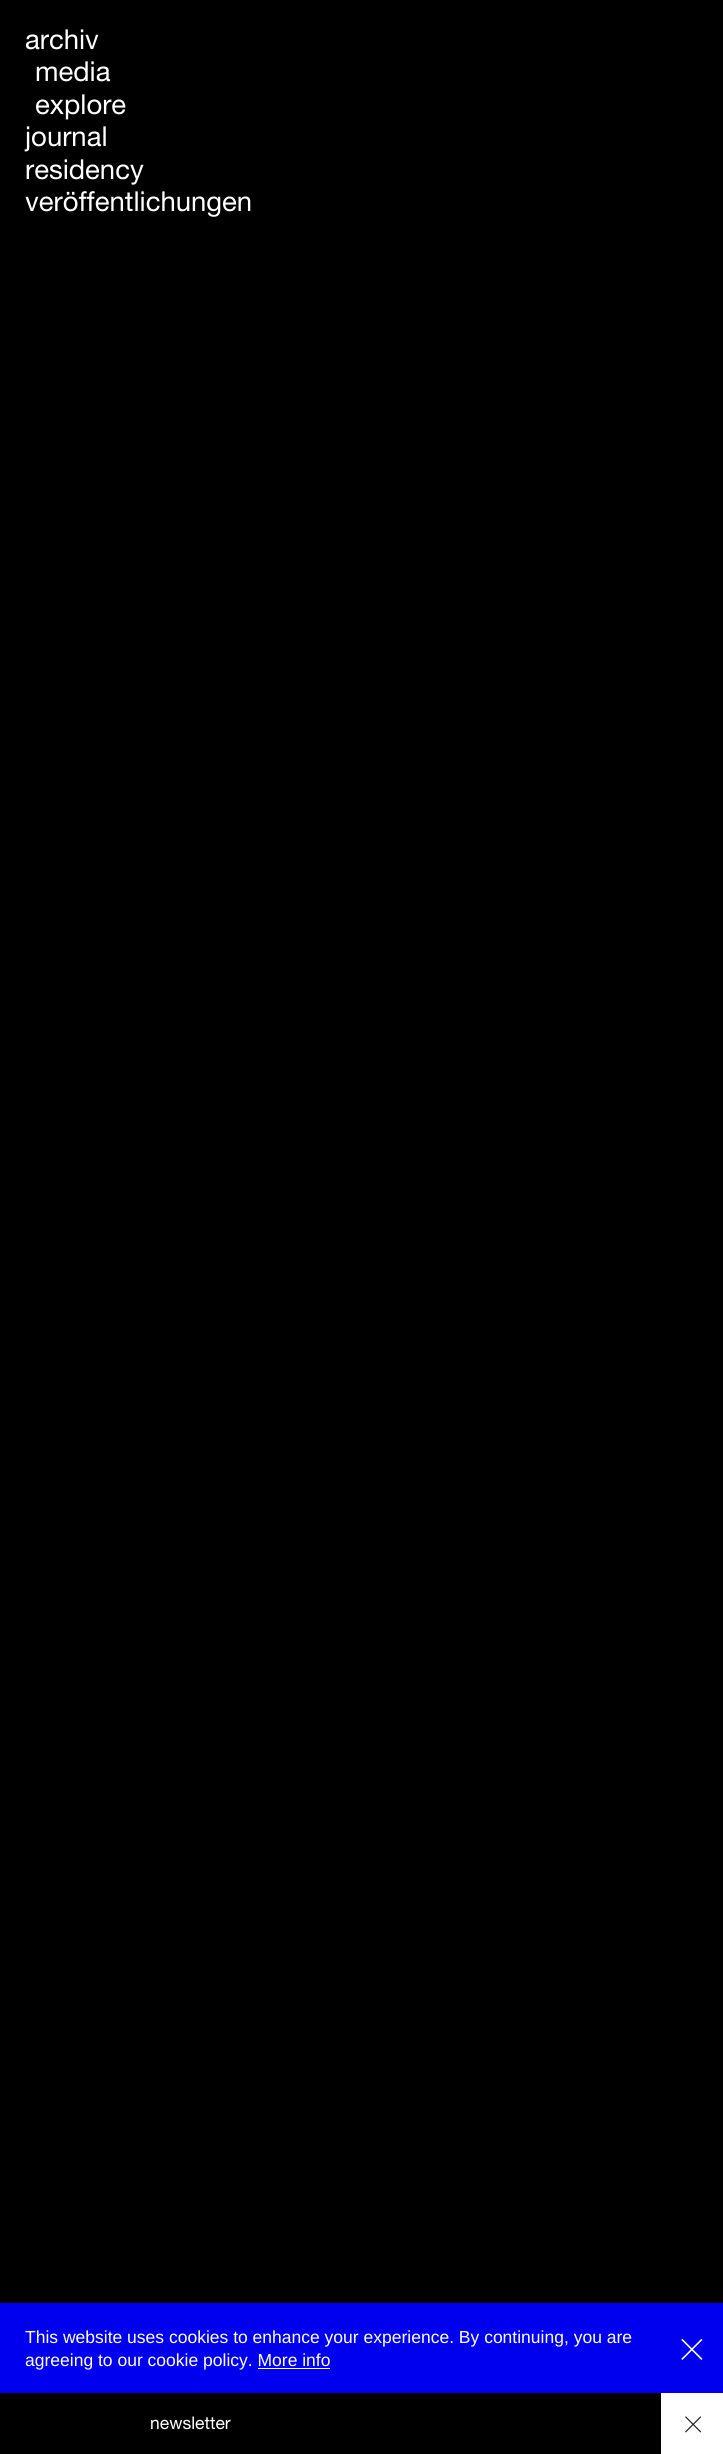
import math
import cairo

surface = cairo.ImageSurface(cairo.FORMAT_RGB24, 723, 2454)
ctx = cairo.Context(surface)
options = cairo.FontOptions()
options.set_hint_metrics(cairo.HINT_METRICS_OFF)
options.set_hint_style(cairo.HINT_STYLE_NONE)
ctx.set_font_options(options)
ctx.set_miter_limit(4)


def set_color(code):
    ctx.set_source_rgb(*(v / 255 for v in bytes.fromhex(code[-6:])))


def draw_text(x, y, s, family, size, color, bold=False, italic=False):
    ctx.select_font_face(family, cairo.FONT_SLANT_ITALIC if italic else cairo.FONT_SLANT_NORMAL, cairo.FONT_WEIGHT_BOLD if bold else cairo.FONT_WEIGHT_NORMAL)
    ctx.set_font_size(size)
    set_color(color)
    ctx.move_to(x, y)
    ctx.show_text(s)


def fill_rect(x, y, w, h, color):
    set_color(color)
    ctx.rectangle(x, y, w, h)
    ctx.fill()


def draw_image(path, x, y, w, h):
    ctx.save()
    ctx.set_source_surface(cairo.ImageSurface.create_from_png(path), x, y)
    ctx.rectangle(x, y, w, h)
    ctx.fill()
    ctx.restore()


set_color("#000000")
ctx.paint()
draw_text(25, 49, "archiv", "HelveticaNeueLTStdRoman", 27.5, "#ffffff")
draw_text(35, 81, "media", "HelveticaNeueLTStdRoman", 27.5, "#ffffff")
draw_text(35, 114, "explore", "HelveticaNeueLTStdRoman", 27.5, "#ffffff")
draw_text(25, 146, "journal", "HelveticaNeueLTStdRoman", 27.5, "#ffffff")
draw_text(25, 179, "residency", "HelveticaNeueLTStdRoman", 27.5, "#ffffff")
draw_text(25, 211, "veröffentlichungen", "HelveticaNeueLTStdRoman", 27.5, "#ffffff")
draw_text(150, 2429, "newsletter", "HelveticaNeueLTStdRoman", 17.5, "#ffffff")
fill_rect(661, 2393, 62, 61, "#ffffff")
draw_image("assets/img1.png", 685, 2416, 16, 17)
fill_rect(0, 2303, 723, 90, "#0000ee")
draw_text(25, 2343, "This website uses cookies to enhance your experience. By continuing, you are", "Liberation Sans", 17.5, "#ffffff")
draw_text(25, 2366, "agreeing to our cookie policy. More info", "Liberation Sans", 17.5, "#ffffff")
fill_rect(258, 2368, 72, 1, "#ffffff")
draw_image("assets/img2.png", 681, 2339, 22, 21)
surface.write_to_png("output.png")
